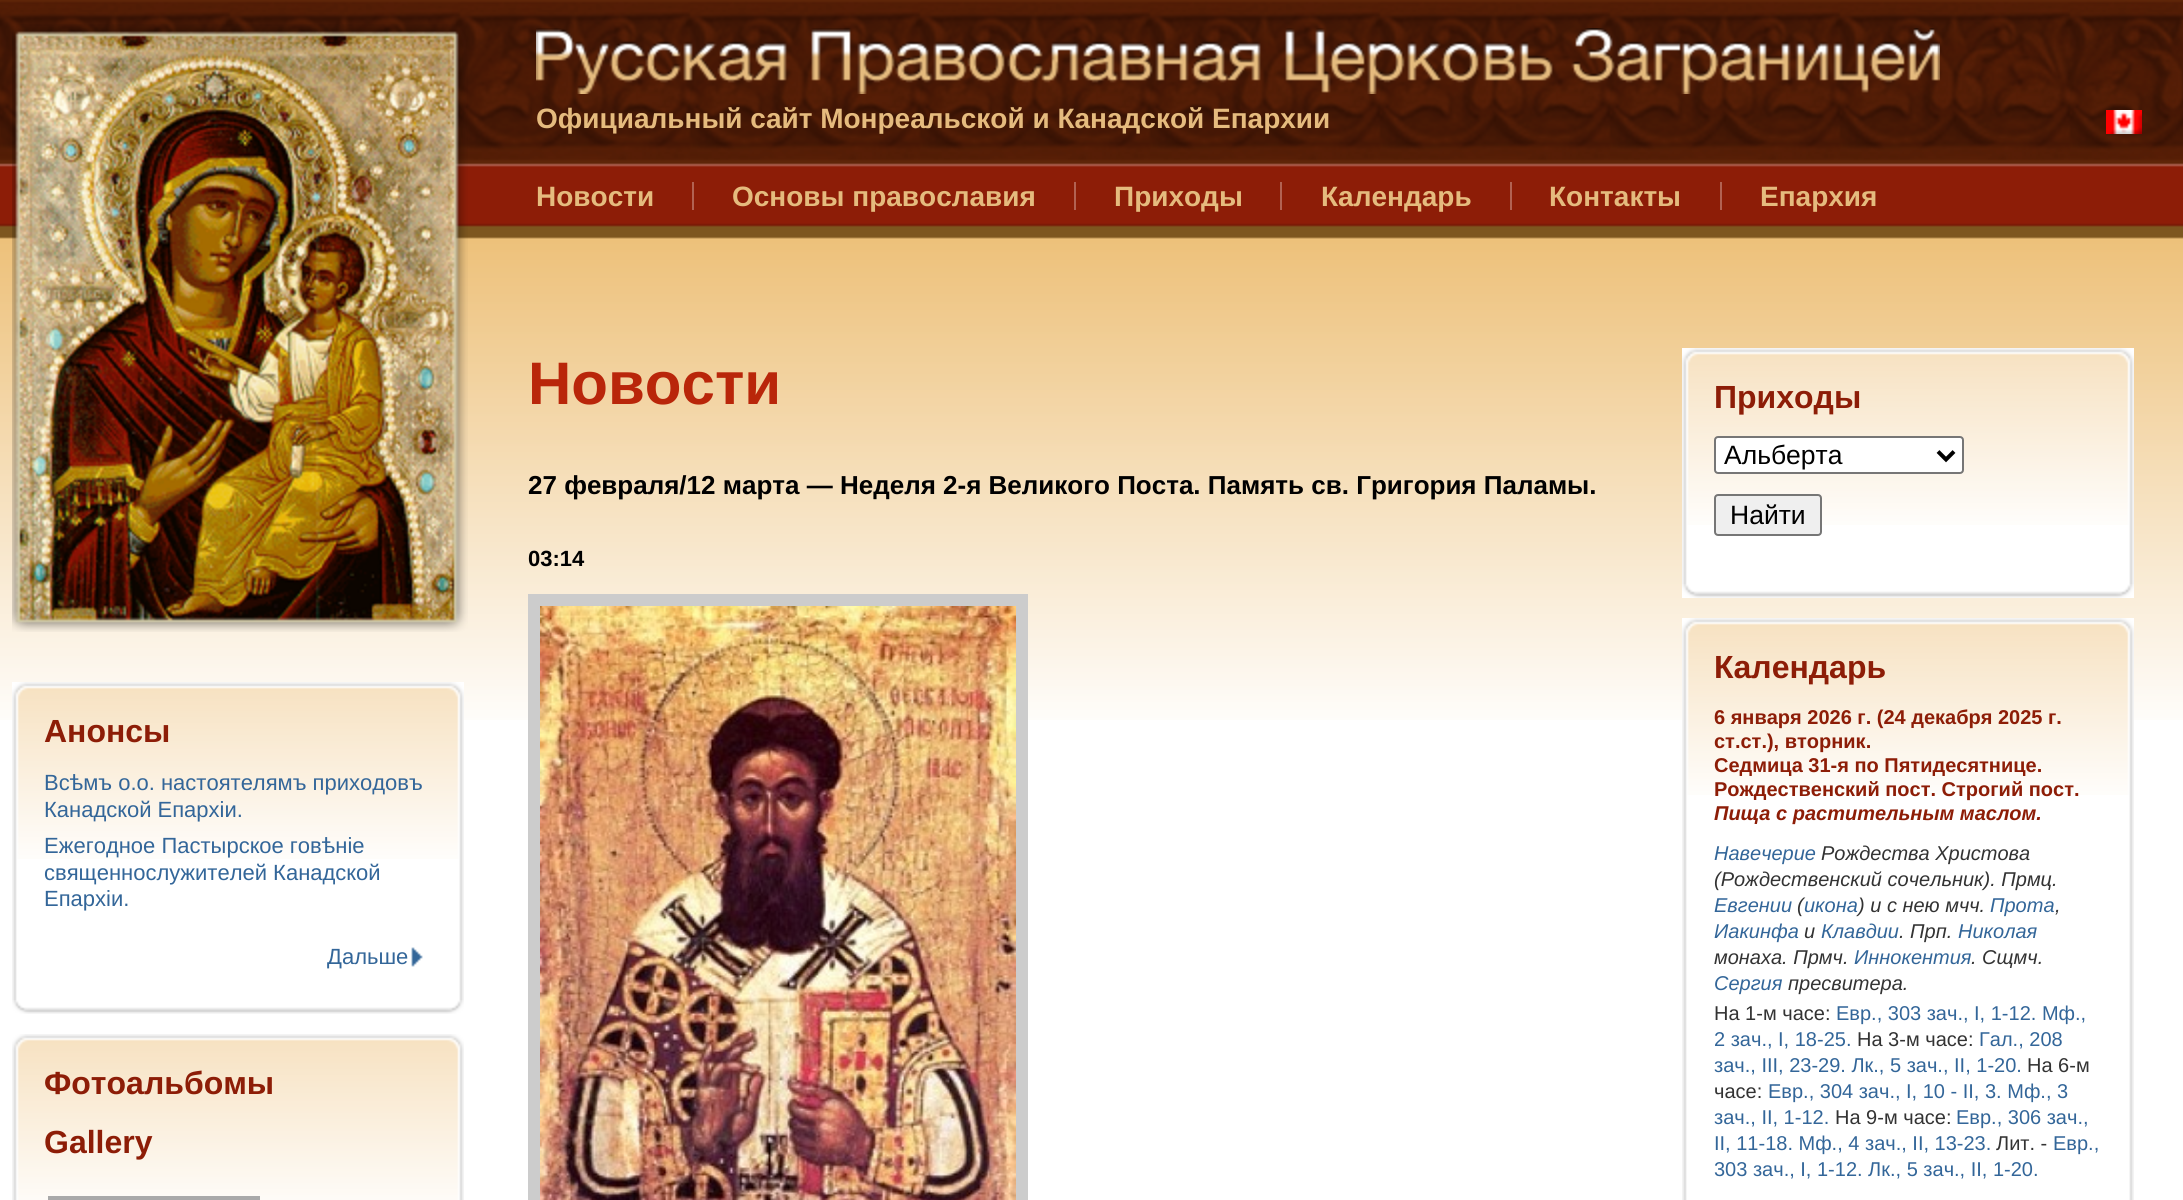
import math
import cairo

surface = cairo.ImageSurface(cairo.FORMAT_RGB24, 2183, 1200)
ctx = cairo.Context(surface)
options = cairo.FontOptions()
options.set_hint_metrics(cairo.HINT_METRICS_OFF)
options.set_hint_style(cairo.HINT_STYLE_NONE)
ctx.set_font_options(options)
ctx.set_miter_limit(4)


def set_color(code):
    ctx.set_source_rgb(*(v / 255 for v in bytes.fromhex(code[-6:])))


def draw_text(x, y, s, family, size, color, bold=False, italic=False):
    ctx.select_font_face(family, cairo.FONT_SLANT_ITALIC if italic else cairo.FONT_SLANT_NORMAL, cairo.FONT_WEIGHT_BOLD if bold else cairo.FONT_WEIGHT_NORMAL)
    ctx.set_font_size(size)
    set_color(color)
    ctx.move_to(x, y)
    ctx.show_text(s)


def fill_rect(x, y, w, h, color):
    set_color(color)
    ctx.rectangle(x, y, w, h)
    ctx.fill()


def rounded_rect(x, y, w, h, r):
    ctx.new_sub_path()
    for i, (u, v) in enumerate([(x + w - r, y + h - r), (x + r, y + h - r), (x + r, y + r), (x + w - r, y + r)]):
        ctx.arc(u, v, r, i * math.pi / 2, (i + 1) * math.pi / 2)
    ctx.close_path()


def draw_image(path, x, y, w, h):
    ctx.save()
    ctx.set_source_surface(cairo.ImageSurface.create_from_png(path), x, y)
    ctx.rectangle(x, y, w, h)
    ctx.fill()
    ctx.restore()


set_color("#ffffff")
ctx.paint()
draw_image("assets/img1.png", 0, 0, 2183, 720)
draw_image("assets/img2.png", 12, 24, 456, 608)
draw_image("assets/img3.png", 12, 859, 452, 141)
draw_image("assets/img4.png", 12, 682, 452, 177)
draw_image("assets/img5.png", 12, 1000, 452, 14)
draw_text(44, 742, "Анонсы", "Liberation Sans", 32, "#8d1d07", bold=True)
draw_text(44, 790, "Всѣмъ о.о. настоятелямъ приходовъ", "Liberation Sans", 22, "#336699")
draw_text(44, 817, "Канадской Епархiи.", "Liberation Sans", 22, "#336699")
draw_text(44, 853, "Ежегодное Пастырское говѣніе", "Liberation Sans", 22, "#336699")
draw_text(44, 880, "священнослужителей Канадской", "Liberation Sans", 22, "#336699")
draw_text(44, 906, "Епархіи.", "Liberation Sans", 22, "#336699")
draw_image("assets/img6.png", 411, 947, 12, 20)
draw_text(327, 964, "Дальше", "Liberation Sans", 22, "#336699")
draw_image("assets/img7.png", 12, 1034, 452, 166)
draw_text(44, 1094, "Фотоальбомы", "Liberation Sans", 32, "#8d1d07", bold=True)
draw_text(44, 1153, "Gallery", "Liberation Sans", 32, "#8d1d07", bold=True)
ctx.rectangle(50, 1198, 208, 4)
set_color("#a9a9a9")
ctx.set_line_width(4)
ctx.stroke()
draw_image("assets/img8.png", 536, 28, 1404, 66)
draw_text(536, 128, "Официальный сайт Монреальской и Канадской Епархии", "Liberation Sans", 28, "#e5bb7e", bold=True)
draw_image("assets/img9.png", 2106, 110, 36, 24)
draw_text(536, 206, "Новости", "Liberation Sans", 28, "#e5bb7e", bold=True)
fill_rect(692, 182, 2, 28, "#b26252")
draw_text(732, 206, "Основы православия", "Liberation Sans", 28, "#e5bb7e", bold=True)
fill_rect(1074, 182, 2, 28, "#b26252")
draw_text(1114, 206, "Приходы", "Liberation Sans", 28, "#e5bb7e", bold=True)
fill_rect(1280, 182, 2, 28, "#b26252")
draw_text(1321, 206, "Календарь", "Liberation Sans", 28, "#e5bb7e", bold=True)
fill_rect(1510, 182, 2, 28, "#b26252")
draw_text(1549, 206, "Контакты", "Liberation Sans", 28, "#e5bb7e", bold=True)
fill_rect(1720, 182, 2, 28, "#b26252")
draw_text(1760, 206, "Епархия", "Liberation Sans", 28, "#e5bb7e", bold=True)
draw_text(528, 404, "Новости", "Liberation Sans", 60, "#b9260a", bold=True)
draw_text(528, 494, "27 февраля/12 марта — Неделя 2-я Великого Поста. Память св. Григория Паламы.", "Liberation Sans", 26, "#000000", bold=True)
draw_text(528, 566, "03:14", "Liberation Sans", 22, "#000000", bold=True)
ctx.rectangle(534, 600, 488, 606)
set_color("#cccccc")
ctx.set_line_width(12)
ctx.stroke()
draw_image("assets/img10.png", 540, 606, 476, 594)
draw_image("assets/img11.png", 1682, 525, 452, 59)
draw_image("assets/img4.png", 1682, 348, 452, 177)
draw_image("assets/img5.png", 1682, 584, 452, 14)
draw_text(1714, 408, "Приходы", "Liberation Sans", 32, "#8d1d07", bold=True)
set_color("#ffffff")
rounded_rect(1715, 437, 248, 36, 3)
ctx.fill_preserve()
set_color("#767676")
ctx.set_line_width(2)
ctx.stroke()
ctx.new_path()
ctx.move_to(1938, 451.5)
ctx.line_to(1946, 459.5)
ctx.line_to(1954, 451.5)
set_color("#000000")
ctx.set_line_width(4)
ctx.stroke()
draw_text(1724, 464, "Альберта", "Liberation Sans", 26.5, "#000000")
set_color("#efefef")
rounded_rect(1715, 495, 106, 40, 3)
ctx.fill_preserve()
set_color("#767676")
ctx.set_line_width(2)
ctx.stroke()
draw_text(1730, 524, "Найти", "Liberation Sans", 26.5, "#000000")
draw_image("assets/img12.png", 1682, 795, 452, 405)
draw_image("assets/img4.png", 1682, 618, 452, 177)
draw_text(1714, 678, "Календарь", "Liberation Sans", 32, "#8d1d07", bold=True)
draw_text(1714, 724, "6 января 2026 г. (24 декабря 2025 г.", "Liberation Sans", 20, "#8d1d07", bold=True)
draw_text(1714, 748, "ст.ст.), вторник.", "Liberation Sans", 20, "#8d1d07", bold=True)
draw_text(1714, 772, "Седмица 31-я по Пятидесятнице.", "Liberation Sans", 20, "#8d1d07", bold=True)
draw_text(1714, 796, "Рождественский пост. Строгий пост.", "Liberation Sans", 20, "#8d1d07", bold=True)
draw_text(1714, 820, "Пища с растительным маслом.", "Liberation Sans", 20, "#8d1d07", bold=True, italic=True)
draw_text(1714, 860, "Навечерие", "Liberation Sans", 20, "#336699", italic=True)
draw_text(1821, 860, "Рождества Христова", "Liberation Sans", 20, "#333333", italic=True)
draw_text(1714, 886, "(Рождественский сочельник). Прмц.", "Liberation Sans", 20, "#333333", italic=True)
draw_text(1714, 912, "Евгении", "Liberation Sans", 20, "#336699", italic=True)
draw_text(1797, 912, "(", "Liberation Sans", 20, "#333333", italic=True)
draw_text(1804, 912, "икона", "Liberation Sans", 20, "#336699", italic=True)
draw_text(1858, 912, ") и с нею мчч.", "Liberation Sans", 20, "#333333", italic=True)
draw_text(1990, 912, "Прота", "Liberation Sans", 20, "#336699", italic=True)
draw_text(2055, 912, ",", "Liberation Sans", 20, "#333333", italic=True)
draw_text(1714, 938, "Иакинфа", "Liberation Sans", 20, "#336699", italic=True)
draw_text(1804, 938, "и", "Liberation Sans", 20, "#333333", italic=True)
draw_text(1821, 938, "Клавдии", "Liberation Sans", 20, "#336699", italic=True)
draw_text(1899, 938, ". Прп.", "Liberation Sans", 20, "#333333", italic=True)
draw_text(1958, 938, "Николая", "Liberation Sans", 20, "#336699", italic=True)
draw_text(1714, 964, "монаха. Прмч.", "Liberation Sans", 20, "#333333", italic=True)
draw_text(1854, 964, "Иннокентия", "Liberation Sans", 20, "#336699", italic=True)
draw_text(1971, 964, ". Сщмч.", "Liberation Sans", 20, "#333333", italic=True)
draw_text(1714, 990, "Сергия", "Liberation Sans", 20, "#336699", italic=True)
draw_text(1788, 990, "пресвитера.", "Liberation Sans", 20, "#333333", italic=True)
draw_text(1714, 1020, "На 1-м часе:", "Liberation Sans", 20, "#333333")
draw_text(1836, 1020, "Евр., 303 зач., I, 1-12. Мф.,", "Liberation Sans", 20, "#336699")
draw_text(1714, 1046, "2 зач., I, 18-25.", "Liberation Sans", 20, "#336699")
draw_text(1857, 1046, "На 3-м часе:", "Liberation Sans", 20, "#333333")
draw_text(1979, 1046, "Гал., 208", "Liberation Sans", 20, "#336699")
draw_text(1714, 1072, "зач., III, 23-29. Лк., 5 зач., II, 1-20.", "Liberation Sans", 20, "#336699")
draw_text(2027, 1072, "На 6-м", "Liberation Sans", 20, "#333333")
draw_text(1714, 1098, "часе:", "Liberation Sans", 20, "#333333")
draw_text(1768, 1098, "Евр., 304 зач., I, 10 - II, 3. Мф., 3", "Liberation Sans", 20, "#336699")
draw_text(1714, 1124, "зач., II, 1-12.", "Liberation Sans", 20, "#336699")
draw_text(1835, 1124, "На 9-м часе:", "Liberation Sans", 20, "#333333")
draw_text(1956, 1124, "Евр., 306 зач.,", "Liberation Sans", 20, "#336699")
draw_text(1714, 1150, "II, 11-18. Мф., 4 зач., II, 13-23.", "Liberation Sans", 20, "#336699")
draw_text(1996, 1150, "Лит. -", "Liberation Sans", 20, "#333333")
draw_text(2053, 1150, "Евр.,", "Liberation Sans", 20, "#336699")
draw_text(1714, 1176, "303 зач., I, 1-12. Лк., 5 зач., II, 1-20.", "Liberation Sans", 20, "#336699")
surface.write_to_png("output.png")
